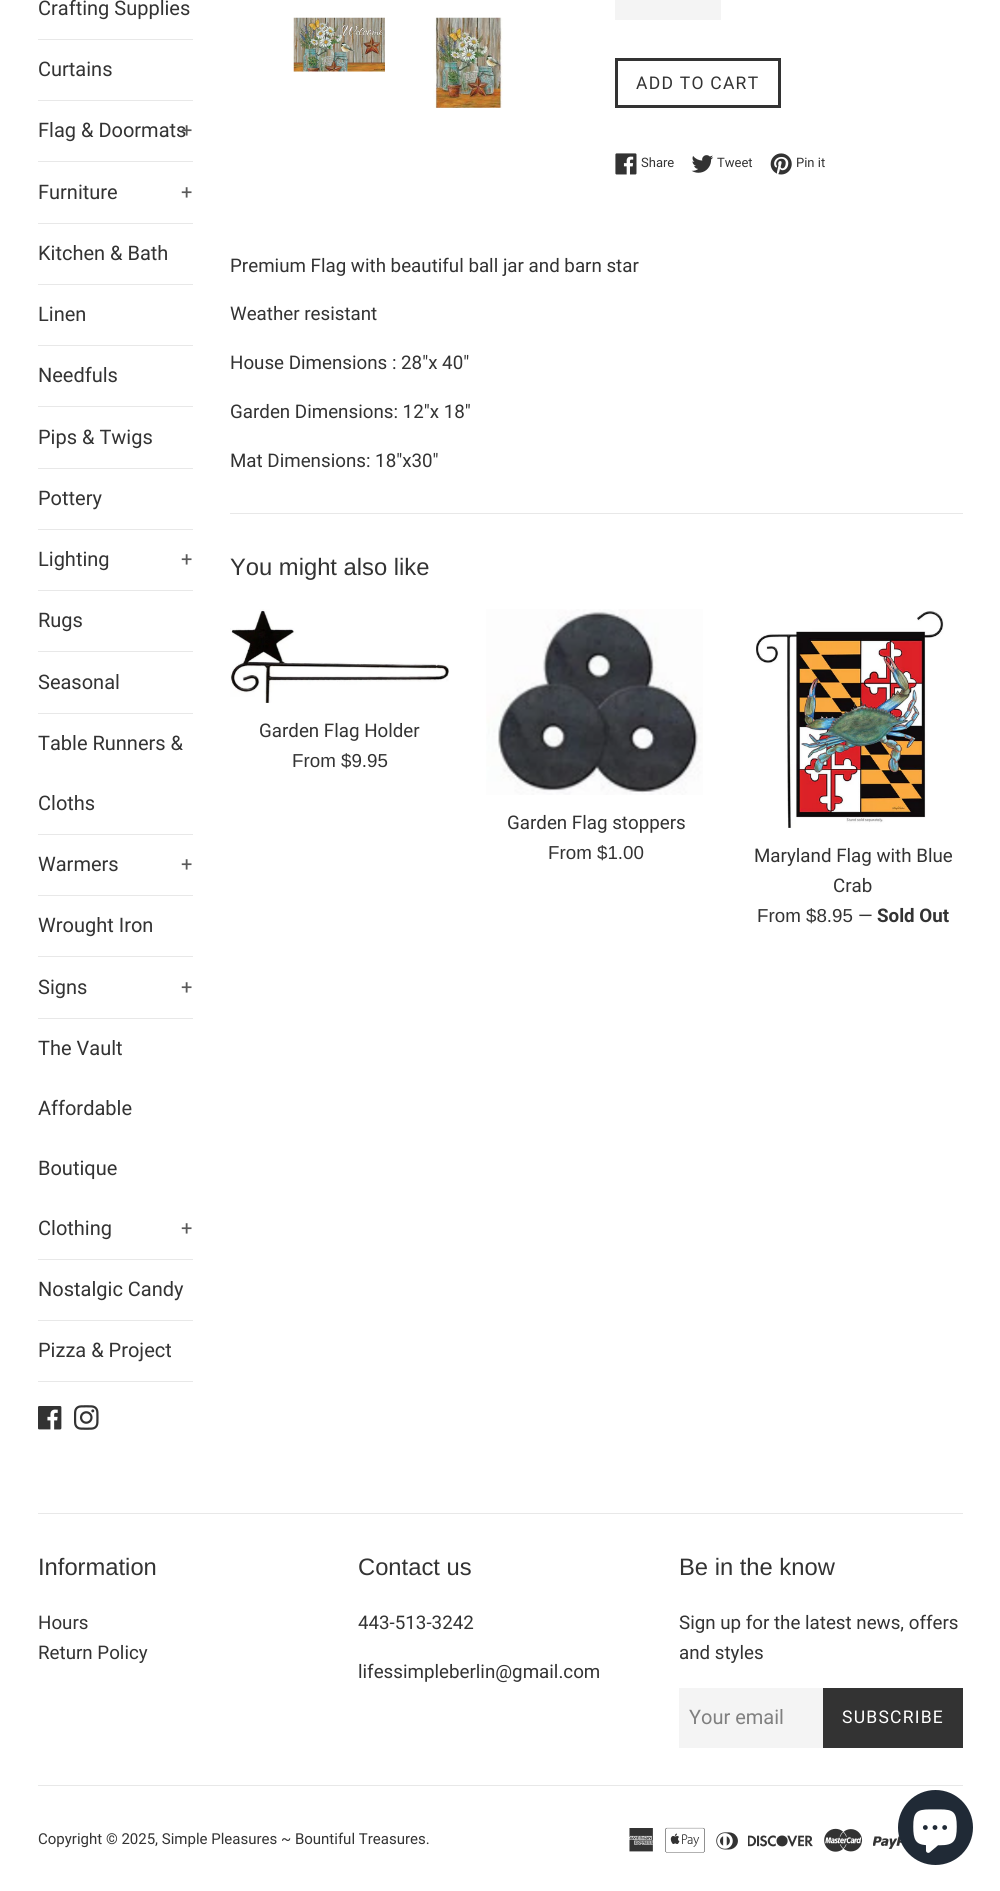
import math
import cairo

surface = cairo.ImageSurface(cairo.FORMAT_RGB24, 1000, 1891)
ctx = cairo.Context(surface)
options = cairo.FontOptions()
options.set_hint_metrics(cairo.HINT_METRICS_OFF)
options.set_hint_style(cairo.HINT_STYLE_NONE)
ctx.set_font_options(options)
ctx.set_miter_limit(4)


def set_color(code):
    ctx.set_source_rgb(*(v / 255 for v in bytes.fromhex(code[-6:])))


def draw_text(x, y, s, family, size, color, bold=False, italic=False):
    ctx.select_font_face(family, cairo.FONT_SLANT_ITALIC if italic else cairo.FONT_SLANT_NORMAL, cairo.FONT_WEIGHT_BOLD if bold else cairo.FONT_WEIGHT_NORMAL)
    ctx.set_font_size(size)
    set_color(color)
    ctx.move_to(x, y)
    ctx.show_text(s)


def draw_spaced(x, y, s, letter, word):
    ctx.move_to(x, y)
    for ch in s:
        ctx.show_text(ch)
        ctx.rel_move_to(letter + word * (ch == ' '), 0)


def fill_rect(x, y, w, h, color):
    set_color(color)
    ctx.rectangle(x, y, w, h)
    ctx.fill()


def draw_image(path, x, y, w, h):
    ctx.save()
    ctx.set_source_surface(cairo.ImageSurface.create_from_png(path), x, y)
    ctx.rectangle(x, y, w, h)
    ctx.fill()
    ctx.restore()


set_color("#ffffff")
ctx.paint()
fill_rect(38, 39, 155, 1, "#e8e8e8")
draw_text(38, 15, "Crafting Supplies", "Roboto", 20, "#333333")
fill_rect(38, 100, 155, 1, "#e8e8e8")
draw_text(38, 76, "Curtains", "Roboto", 20, "#333333")
fill_rect(38, 161, 155, 1, "#e8e8e8")
draw_text(38, 137, "Flag & Doormats", "Roboto", 20, "#333333")
draw_text(181, 137, "+", "Roboto", 20, "#5a5a5a")
fill_rect(38, 223, 155, 1, "#e8e8e8")
draw_text(38, 199, "Furniture", "Roboto", 20, "#333333")
draw_text(181, 199, "+", "Roboto", 20, "#5a5a5a")
fill_rect(38, 284, 155, 1, "#e8e8e8")
draw_text(38, 260, "Kitchen & Bath", "Roboto", 20, "#333333")
fill_rect(38, 345, 155, 1, "#e8e8e8")
draw_text(38, 321, "Linen", "Roboto", 20, "#333333")
fill_rect(38, 406, 155, 1, "#e8e8e8")
draw_text(38, 382, "Needfuls", "Roboto", 20, "#333333")
fill_rect(38, 468, 155, 1, "#e8e8e8")
draw_text(38, 444, "Pips & Twigs", "Roboto", 20, "#333333")
fill_rect(38, 529, 155, 1, "#e8e8e8")
draw_text(38, 505, "Pottery", "Roboto", 20, "#333333")
fill_rect(38, 590, 155, 1, "#e8e8e8")
draw_text(38, 566, "Lighting", "Roboto", 20, "#333333")
draw_text(181, 566, "+", "Roboto", 20, "#5a5a5a")
fill_rect(38, 651, 155, 1, "#e8e8e8")
draw_text(38, 627, "Rugs", "Roboto", 20, "#333333")
fill_rect(38, 713, 155, 1, "#e8e8e8")
draw_text(38, 689, "Seasonal", "Roboto", 20, "#333333")
fill_rect(38, 834, 155, 1, "#e8e8e8")
draw_text(38, 750, "Table Runners &", "Roboto", 20, "#333333")
draw_text(38, 810, "Cloths", "Roboto", 20, "#333333")
fill_rect(38, 895, 155, 1, "#e8e8e8")
draw_text(38, 871, "Warmers", "Roboto", 20, "#333333")
draw_text(181, 871, "+", "Roboto", 20, "#5a5a5a")
fill_rect(38, 956, 155, 1, "#e8e8e8")
draw_text(38, 932, "Wrought Iron", "Roboto", 20, "#333333")
fill_rect(38, 1018, 155, 1, "#e8e8e8")
draw_text(38, 994, "Signs", "Roboto", 20, "#333333")
draw_text(181, 994, "+", "Roboto", 20, "#5a5a5a")
fill_rect(38, 1259, 155, 1, "#e8e8e8")
draw_text(38, 1055, "The Vault", "Roboto", 20, "#333333")
draw_text(38, 1115, "Affordable", "Roboto", 20, "#333333")
draw_text(38, 1175, "Boutique", "Roboto", 20, "#333333")
draw_text(38, 1235, "Clothing", "Roboto", 20, "#333333")
draw_text(181, 1235, "+", "Roboto", 20, "#5a5a5a")
fill_rect(38, 1320, 155, 1, "#e8e8e8")
draw_text(38, 1296, "Nostalgic Candy", "Roboto", 20, "#333333")
fill_rect(38, 1381, 155, 1, "#e8e8e8")
draw_text(38, 1357, "Pizza & Project", "Roboto", 20, "#333333")
draw_image("assets/img1.png", 38, 1406, 24, 24)
draw_image("assets/img2.png", 74, 1405, 25, 25)
draw_image("assets/img3.png", 293, 17, 92, 55)
draw_image("assets/img4.png", 433, 17, 70, 91)
fill_rect(615, 0, 106, 20, "#f4f4f4")
ctx.rectangle(616.5, 59.5, 163, 47)
set_color("#333333")
ctx.set_line_width(3)
ctx.stroke()
ctx.set_font_size(17.5)
draw_spaced(636, 89, "ADD TO CART", 1.25, 0)
draw_image("assets/img5.png", 615, 153, 22, 22)
draw_text(641, 167, "Share", "Roboto", 13, "#333333")
draw_image("assets/img6.png", 691, 155, 23, 18)
draw_text(717, 167, "Tweet", "Roboto", 13, "#333333")
draw_image("assets/img7.png", 770, 153, 22, 22)
draw_text(796, 167, "Pin it", "Roboto", 13, "#333333")
draw_text(230, 272, "Premium Flag with beautiful ball jar and barn star", "Roboto", 18.75, "#333333")
draw_text(230, 320, "Weather resistant", "Roboto", 18.75, "#333333")
draw_text(230, 369, "House Dimensions : 28\"x 40\"", "Roboto", 18.75, "#333333")
draw_text(230, 418, "Garden Dimensions: 12\"x 18\"", "Roboto", 18.75, "#333333")
draw_text(230, 467, "Mat Dimensions: 18\"x30\"", "Roboto", 18.75, "#333333")
fill_rect(230, 513, 733, 1, "#e8e8e8")
draw_text(230, 575, "You might also like", "Liberation Sans", 23.75, "#333333")
draw_image("assets/img8.png", 230, 609, 219, 94)
draw_text(259, 737, "Garden Flag Holder", "Roboto", 18.75, "#333333")
draw_text(292, 767, "From $9.95", "Liberation Sans", 18.75, "#333333")
draw_image("assets/img9.png", 486, 609, 217, 186)
draw_text(507, 829, "Garden Flag stoppers", "Roboto", 18.75, "#333333")
draw_text(548, 859, "From $1.00", "Liberation Sans", 18.75, "#333333")
draw_image("assets/img10.png", 756, 610, 188, 218)
draw_text(754, 862, "Maryland Flag with Blue", "Roboto", 18.75, "#333333")
draw_text(833, 892, "Crab", "Roboto", 18.75, "#333333")
draw_text(757, 922, "From $8.95", "Liberation Sans", 18.75, "#333333")
draw_text(858, 922, "—", "Roboto", 18.75, "#333333")
draw_text(877, 922, "Sold Out", "Roboto", 18.75, "#333333", bold=True)
fill_rect(38, 1513, 925, 1, "#e8e8e8")
draw_text(38, 1575, "Information", "Liberation Sans", 23.75, "#333333")
draw_text(38, 1629, "Hours", "Roboto", 18.75, "#333333")
draw_text(38, 1659, "Return Policy", "Roboto", 18.75, "#333333")
draw_text(358, 1575, "Contact us", "Liberation Sans", 23.75, "#333333")
draw_text(358, 1629, "443-513-3242", "Roboto", 18.75, "#333333")
draw_text(358, 1678, "lifessimpleberlin@gmail.com", "Roboto", 18.75, "#333333")
draw_text(679, 1575, "Be in the know", "Liberation Sans", 23.75, "#333333")
draw_text(679, 1629, "Sign up for the latest news, offers", "Roboto", 18.75, "#333333")
draw_text(679, 1659, "and styles", "Roboto", 18.75, "#333333")
fill_rect(679, 1688, 144, 60, "#f4f4f4")
draw_text(689, 1724, "Your email", "Roboto", 20, "#808080")
fill_rect(823, 1688, 140, 60, "#333333")
ctx.set_font_size(17.5)
set_color("#ffffff")
draw_spaced(842, 1723, "SUBSCRIBE", 1.25, 0)
fill_rect(38, 1785, 925, 1, "#e8e8e8")
draw_text(38, 1844, "Copyright © 2025, Simple Pleasures ~ Bountiful Treasures.", "Roboto", 15, "#333333")
draw_image("assets/img11.png", 629, 1828, 24, 24)
draw_image("assets/img12.png", 665, 1827, 40, 26)
draw_image("assets/img13.png", 716, 1832, 22, 18)
draw_image("assets/img14.png", 748, 1835, 65, 12)
draw_image("assets/img15.png", 824, 1828, 39, 24)
draw_image("assets/img16.png", 873, 1836, 29, 13)
set_color("#202a36")
ctx.arc(935.5, 1827.5, 37.5, 0, 2 * math.pi)
ctx.fill()
draw_image("assets/img17.png", 913, 1809, 44, 44)
surface.write_to_png("output.png")
